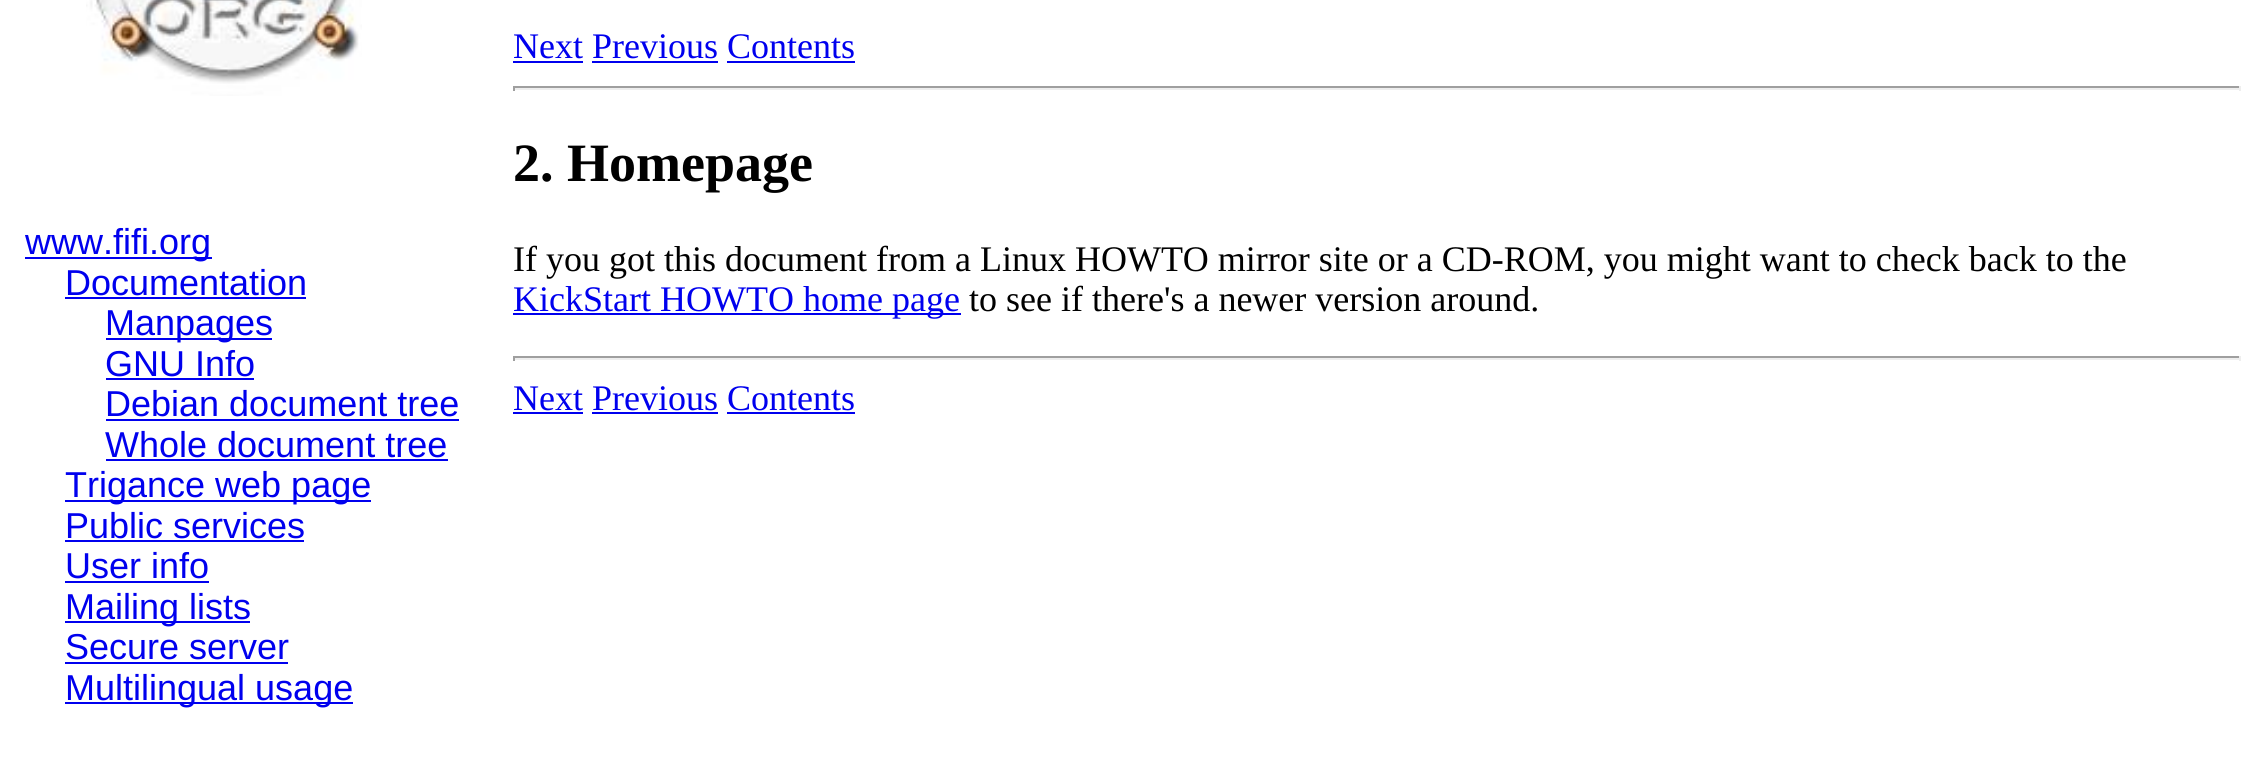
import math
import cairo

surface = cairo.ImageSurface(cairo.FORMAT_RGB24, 2264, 769)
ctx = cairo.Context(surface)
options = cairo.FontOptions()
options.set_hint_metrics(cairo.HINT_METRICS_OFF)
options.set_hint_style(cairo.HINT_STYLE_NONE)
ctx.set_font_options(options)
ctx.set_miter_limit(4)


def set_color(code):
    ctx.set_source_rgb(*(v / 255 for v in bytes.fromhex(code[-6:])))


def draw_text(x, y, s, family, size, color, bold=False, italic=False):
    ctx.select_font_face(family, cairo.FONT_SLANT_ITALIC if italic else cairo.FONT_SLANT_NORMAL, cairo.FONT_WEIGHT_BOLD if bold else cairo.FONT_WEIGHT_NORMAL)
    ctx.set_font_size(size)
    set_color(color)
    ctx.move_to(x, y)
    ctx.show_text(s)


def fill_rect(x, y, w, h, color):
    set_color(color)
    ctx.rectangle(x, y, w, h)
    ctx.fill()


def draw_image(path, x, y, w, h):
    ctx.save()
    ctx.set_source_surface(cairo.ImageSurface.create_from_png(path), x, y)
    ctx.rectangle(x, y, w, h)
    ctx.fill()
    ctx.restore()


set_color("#ffffff")
ctx.paint()
draw_image("assets/img1.png", 86, 0, 276, 96)
fill_rect(25, 257, 187, 2, "#0000ee")
draw_text(25, 254, "www.fifi.org", "Liberation Sans", 36, "#0000ee")
draw_text(65, 295, "Documentation", "Liberation Sans", 36, "#0000ee")
fill_rect(65, 297, 241, 2, "#0000ee")
fill_rect(106, 338, 166, 2, "#0000ee")
draw_text(105, 335, "Manpages", "Liberation Sans", 36, "#0000ee")
draw_text(105, 376, "GNU Info", "Liberation Sans", 36, "#0000ee")
fill_rect(106, 378, 148, 2, "#0000ee")
draw_text(105, 416, "Debian document tree", "Liberation Sans", 36, "#0000ee")
fill_rect(106, 419, 353, 2, "#0000ee")
draw_text(105, 457, "Whole document tree", "Liberation Sans", 36, "#0000ee")
fill_rect(106, 459, 342, 2, "#0000ee")
fill_rect(65, 500, 306, 2, "#0000ee")
draw_text(65, 497, "Trigance web page", "Liberation Sans", 36, "#0000ee")
draw_text(65, 538, "Public services", "Liberation Sans", 36, "#0000ee")
fill_rect(65, 540, 239, 2, "#0000ee")
draw_text(65, 578, "User info", "Liberation Sans", 36, "#0000ee")
fill_rect(65, 581, 144, 2, "#0000ee")
fill_rect(65, 621, 185, 2, "#0000ee")
draw_text(65, 619, "Mailing lists", "Liberation Sans", 36, "#0000ee")
draw_text(65, 659, "Secure server", "Liberation Sans", 36, "#0000ee")
fill_rect(65, 662, 223, 2, "#0000ee")
fill_rect(65, 702, 288, 2, "#0000ee")
draw_text(65, 700, "Multilingual usage", "Liberation Sans", 36, "#0000ee")
draw_text(513, 58, "Next Previous Contents", "Liberation Serif", 36, "#0000ee")
fill_rect(513, 61, 70, 2, "#0000ee")
fill_rect(592, 61, 126, 2, "#0000ee")
fill_rect(727, 61, 128, 2, "#0000ee")
fill_rect(513, 86, 1728, 2, "#9f9f9f")
fill_rect(2239, 86, 2, 5, "#eeeeee")
fill_rect(513, 88, 1728, 2, "#eeeeee")
fill_rect(513, 86, 2, 5, "#9f9f9f")
draw_text(513, 181, "2. Homepage", "Liberation Serif", 54, "#000000", bold=True)
draw_text(513, 271, "If you got this document from a Linux HOWTO mirror site or a CD-ROM, you might want to check back to the", "Liberation Serif", 36, "#000000")
fill_rect(513, 313, 448, 2, "#0000ee")
draw_text(513, 311, "KickStart HOWTO home page", "Liberation Serif", 36, "#0000ee")
draw_text(969, 311, "to see if there's a newer version around.", "Liberation Serif", 36, "#000000")
fill_rect(513, 356, 1728, 2, "#9f9f9f")
fill_rect(2239, 356, 2, 5, "#eeeeee")
fill_rect(513, 358, 1728, 2, "#eeeeee")
fill_rect(513, 356, 2, 5, "#9f9f9f")
draw_text(513, 410, "Next Previous Contents", "Liberation Serif", 36, "#0000ee")
fill_rect(513, 412, 70, 2, "#0000ee")
fill_rect(592, 412, 126, 2, "#0000ee")
fill_rect(727, 412, 128, 2, "#0000ee")
surface.write_to_png("output.png")
